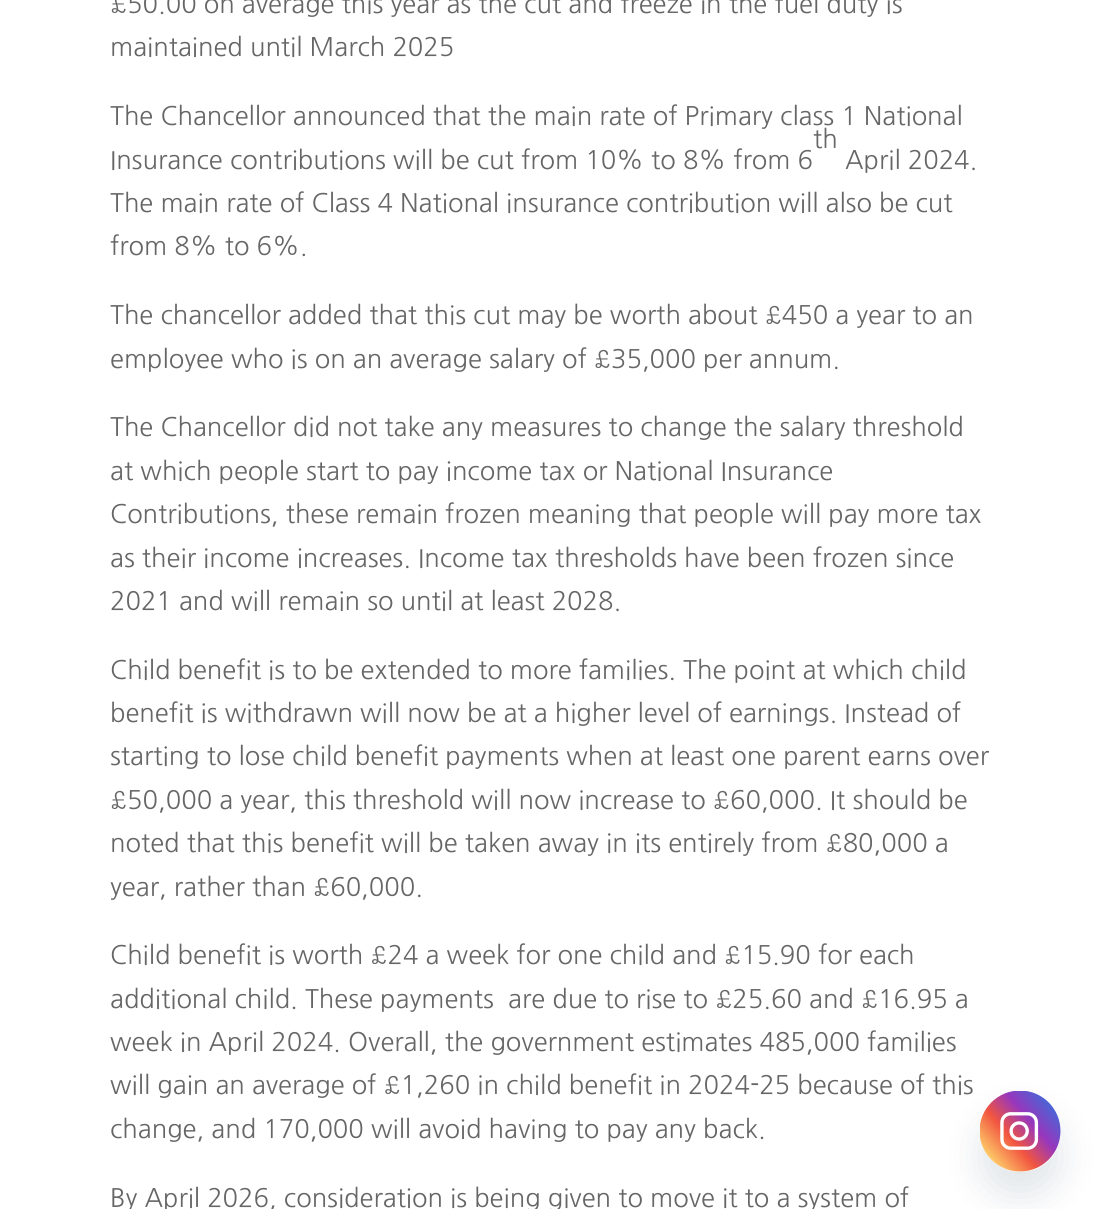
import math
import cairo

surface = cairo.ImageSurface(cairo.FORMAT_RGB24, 1103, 1209)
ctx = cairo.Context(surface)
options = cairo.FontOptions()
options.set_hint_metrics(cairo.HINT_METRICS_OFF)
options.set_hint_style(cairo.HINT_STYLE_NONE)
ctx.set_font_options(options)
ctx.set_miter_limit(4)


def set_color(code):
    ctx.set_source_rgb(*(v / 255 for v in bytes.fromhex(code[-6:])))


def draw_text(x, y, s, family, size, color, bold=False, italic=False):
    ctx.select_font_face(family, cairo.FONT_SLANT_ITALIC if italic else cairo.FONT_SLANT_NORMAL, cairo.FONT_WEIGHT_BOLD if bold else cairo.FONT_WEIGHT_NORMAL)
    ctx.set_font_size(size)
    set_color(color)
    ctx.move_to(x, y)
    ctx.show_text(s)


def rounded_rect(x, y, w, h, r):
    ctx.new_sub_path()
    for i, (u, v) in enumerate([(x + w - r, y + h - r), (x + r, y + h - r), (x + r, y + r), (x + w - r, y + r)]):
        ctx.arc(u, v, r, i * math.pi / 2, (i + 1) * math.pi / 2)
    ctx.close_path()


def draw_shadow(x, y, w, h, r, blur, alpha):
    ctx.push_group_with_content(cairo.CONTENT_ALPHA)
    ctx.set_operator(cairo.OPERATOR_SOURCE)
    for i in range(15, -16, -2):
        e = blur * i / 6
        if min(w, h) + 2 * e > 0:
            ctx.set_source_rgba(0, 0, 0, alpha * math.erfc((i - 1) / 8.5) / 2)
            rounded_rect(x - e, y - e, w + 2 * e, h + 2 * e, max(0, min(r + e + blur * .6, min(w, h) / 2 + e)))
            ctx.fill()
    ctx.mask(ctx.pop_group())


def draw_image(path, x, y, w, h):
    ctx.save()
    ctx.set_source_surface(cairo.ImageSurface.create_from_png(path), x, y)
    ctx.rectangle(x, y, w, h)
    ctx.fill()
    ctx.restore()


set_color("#ffffff")
ctx.paint()
draw_text(110, 13, "£50.00 on average this year as the cut and freeze in the fuel duty is", "NanumGothic", 25.5, "#666666")
draw_text(110, 56, "maintained until March 2025", "NanumGothic", 25.5, "#666666")
draw_text(110, 125, "The Chancellor announced that the main rate of Primary class 1 National", "NanumGothic", 25.5, "#666666")
draw_text(813, 148, "th", "NanumGothic", 25.5, "#666666")
draw_text(110, 169, "Insurance contributions will be cut from 10% to 8% from 6", "NanumGothic", 25.5, "#666666")
draw_text(845, 169, "April 2024.", "NanumGothic", 25.5, "#666666")
draw_text(110, 212, "The main rate of Class 4 National insurance contribution will also be cut", "NanumGothic", 25.5, "#666666")
draw_text(110, 255, "from 8% to 6%.", "NanumGothic", 25.5, "#666666")
draw_text(110, 324, "The chancellor added that this cut may be worth about £450 a year to an", "NanumGothic", 25.5, "#666666")
draw_text(110, 368, "employee who is on an average salary of £35,000 per annum.", "NanumGothic", 25.5, "#666666")
draw_text(110, 436, "The Chancellor did not take any measures to change the salary threshold", "NanumGothic", 25.5, "#666666")
draw_text(110, 480, "at which people start to pay income tax or National Insurance", "NanumGothic", 25.5, "#666666")
draw_text(110, 523, "Contributions, these remain frozen meaning that people will pay more tax", "NanumGothic", 25.5, "#666666")
draw_text(110, 567, "as their income increases. Income tax thresholds have been frozen since", "NanumGothic", 25.5, "#666666")
draw_text(110, 610, "2021 and will remain so until at least 2028.", "NanumGothic", 25.5, "#666666")
draw_text(110, 679, "Child benefit is to be extended to more families. The point at which child", "NanumGothic", 25.5, "#666666")
draw_text(110, 722, "benefit is withdrawn will now be at a higher level of earnings. Instead of", "NanumGothic", 25.5, "#666666")
draw_text(110, 765, "starting to lose child benefit payments when at least one parent earns over", "NanumGothic", 25.5, "#666666")
draw_text(110, 809, "£50,000 a year, this threshold will now increase to £60,000. It should be", "NanumGothic", 25.5, "#666666")
draw_text(110, 852, "noted that this benefit will be taken away in its entirely from £80,000 a", "NanumGothic", 25.5, "#666666")
draw_text(110, 896, "year, rather than £60,000.", "NanumGothic", 25.5, "#666666")
draw_text(110, 964, "Child benefit is worth £24 a week for one child and £15.90 for each", "NanumGothic", 25.5, "#666666")
draw_text(110, 1008, "additional child. These payments  are due to rise to £25.60 and £16.95 a", "NanumGothic", 25.5, "#666666")
draw_text(110, 1051, "week in April 2024. Overall, the government estimates 485,000 families", "NanumGothic", 25.5, "#666666")
draw_text(110, 1094, "will gain an average of £1,260 in child benefit in 2024-25 because of this", "NanumGothic", 25.5, "#666666")
draw_text(110, 1138, "change, and 170,000 will avoid having to pay any back.", "NanumGothic", 25.5, "#666666")
draw_text(110, 1207, "By April 2026, consideration is being given to move it to a system of", "NanumGothic", 25.5, "#666666")
set_color("#49687e")
draw_shadow(980, 1115, 81, 81, 40.5, 18, 0.16)
set_color("#ffffff")
ctx.arc(1020.5, 1131.5, 40.5, 0, 2 * math.pi)
ctx.fill()
draw_image("assets/img1.png", 980, 1091, 81, 81)
surface.write_to_png("output.png")
